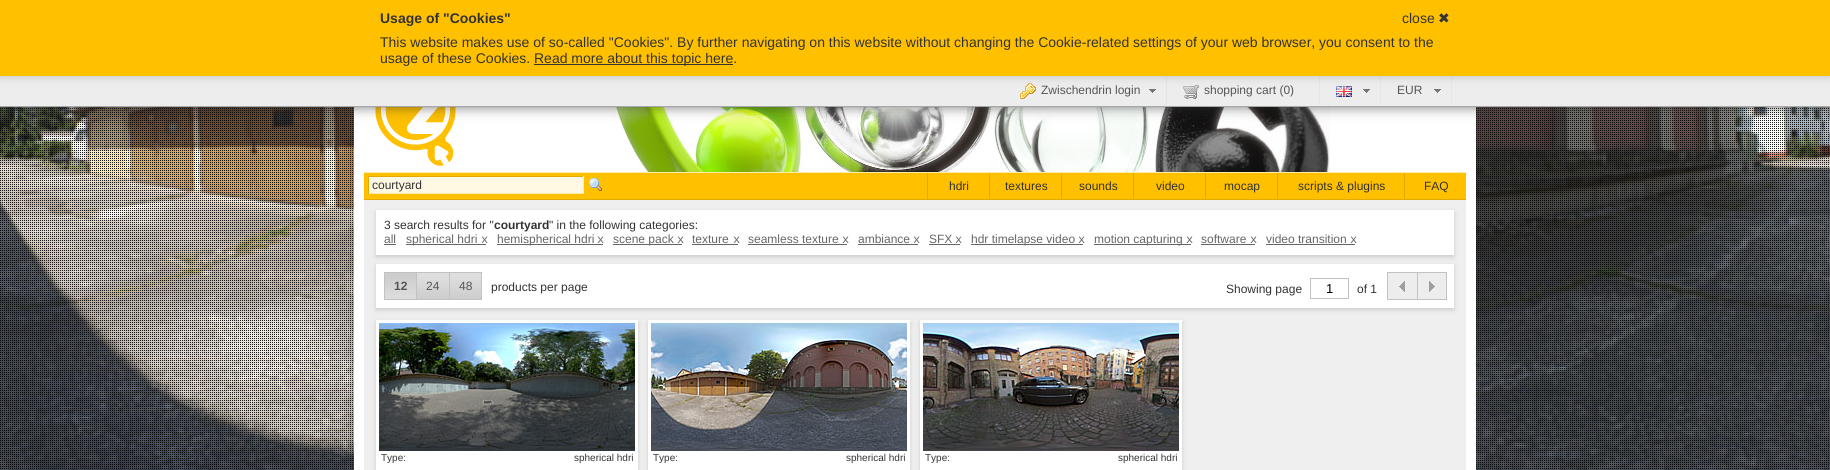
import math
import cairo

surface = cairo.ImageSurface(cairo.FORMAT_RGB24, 1830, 470)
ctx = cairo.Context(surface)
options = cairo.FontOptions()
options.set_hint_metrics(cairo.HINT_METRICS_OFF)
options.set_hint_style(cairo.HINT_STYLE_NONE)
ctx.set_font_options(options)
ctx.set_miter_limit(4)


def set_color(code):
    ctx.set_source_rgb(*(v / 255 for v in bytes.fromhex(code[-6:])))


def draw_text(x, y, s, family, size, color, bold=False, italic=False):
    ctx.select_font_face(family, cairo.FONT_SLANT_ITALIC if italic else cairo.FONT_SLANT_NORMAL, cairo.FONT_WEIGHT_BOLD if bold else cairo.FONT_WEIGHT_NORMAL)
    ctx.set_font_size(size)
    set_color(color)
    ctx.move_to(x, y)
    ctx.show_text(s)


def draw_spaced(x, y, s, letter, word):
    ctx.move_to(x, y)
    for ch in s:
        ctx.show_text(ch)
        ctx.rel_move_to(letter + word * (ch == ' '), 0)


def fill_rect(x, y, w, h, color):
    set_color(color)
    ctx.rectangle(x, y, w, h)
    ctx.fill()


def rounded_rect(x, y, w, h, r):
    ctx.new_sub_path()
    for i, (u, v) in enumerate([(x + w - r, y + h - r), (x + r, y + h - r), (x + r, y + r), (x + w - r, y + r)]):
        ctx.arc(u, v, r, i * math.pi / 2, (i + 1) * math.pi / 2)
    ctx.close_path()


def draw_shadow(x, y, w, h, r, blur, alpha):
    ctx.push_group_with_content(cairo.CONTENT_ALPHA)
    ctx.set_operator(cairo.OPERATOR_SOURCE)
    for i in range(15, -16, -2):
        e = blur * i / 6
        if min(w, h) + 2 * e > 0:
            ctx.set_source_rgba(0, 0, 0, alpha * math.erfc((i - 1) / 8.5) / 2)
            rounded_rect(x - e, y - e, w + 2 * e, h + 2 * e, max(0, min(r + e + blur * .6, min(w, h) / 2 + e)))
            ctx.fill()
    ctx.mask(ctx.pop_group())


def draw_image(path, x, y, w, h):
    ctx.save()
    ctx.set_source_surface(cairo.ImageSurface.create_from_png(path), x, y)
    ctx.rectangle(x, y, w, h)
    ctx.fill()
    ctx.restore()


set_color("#ffffff")
ctx.paint()
draw_image("assets/img1.png", 0, 107, 1830, 363)
draw_image("assets/img2.png", 0, 108, 1829, 361)
set_color("#333333")
draw_shadow(384, 112, 1062, 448, 0, 30, 1)
fill_rect(354, 107, 1122, 363, "#ffffff")
draw_image("assets/img7.png", 604, 107, 726, 65)
draw_image("assets/img8.png", 375, 107, 81, 59)
set_color("#333333")
draw_shadow(0, 73, 1830, 31, 0, 7.5, 1)
fill_rect(0, 76, 1830, 30, "#ededed")
fill_rect(1166, 76, 1, 28, "#e5e5e5")
draw_image("assets/img3.png", 1020, 83, 16, 16)
draw_image("assets/img4.png", 1149, 89, 7, 4)
fill_rect(1319, 76, 1, 28, "#e5e5e5")
draw_image("assets/img5.png", 1183, 85, 16, 14)
fill_rect(1380, 76, 1, 28, "#e5e5e5")
draw_image("assets/img6.png", 1336, 86, 16, 11)
draw_image("assets/img4.png", 1363, 89, 7, 4)
fill_rect(1451, 76, 1, 28, "#e5e5e5")
draw_image("assets/img4.png", 1434, 89, 7, 4)
set_color("#000000")
draw_shadow(0, 0, 1830, 76, 0, 5, 0.2)
fill_rect(0, 0, 1830, 76, "#ffc000")
draw_text(380, 23, "Usage of \"Cookies\"", "Liberation Sans", 14, "#333333", bold=True)
draw_text(1402, 23, "close", "Liberation Sans", 14, "#333333")
draw_text(1438, 23, "✖", "DejaVu Sans", 14, "#333333")
draw_text(380, 47, "This website makes use of so-called \"Cookies\". By further navigating on this website without changing the Cookie-related settings of your web browser, you consent to the", "Liberation Sans", 14, "#333333")
draw_text(380, 63, "usage of these Cookies.", "Liberation Sans", 14, "#333333")
fill_rect(534, 64, 199, 1, "#333333")
draw_text(534, 63, "Read more about this topic here.", "Liberation Sans", 14, "#333333")
fill_rect(0, 106, 1830, 1, "#a9a9a9")
draw_text(1041, 94, "Zwischendrin login", "Liberation Sans", 12, "#555555")
draw_text(1204, 94, "shopping cart (0)", "Liberation Sans", 12, "#555555")
draw_text(1397, 94, "EUR", "Liberation Sans", 12, "#555555")
fill_rect(364, 200, 1102, 270, "#efefef")
fill_rect(364, 173, 1102, 26, "#ffc000")
fill_rect(364, 172, 1102, 1, "#ffeaa7")
fill_rect(364, 199, 1102, 1, "#e2aa00")
fill_rect(369, 177, 214, 16, "#fff8e3")
fill_rect(368, 176, 216, 1, "#e2aa00")
fill_rect(583, 176, 1, 18, "#ffeaa7")
fill_rect(368, 193, 216, 1, "#ffeaa7")
fill_rect(368, 176, 1, 18, "#e2aa00")
draw_text(372, 189, "courtyard", "Liberation Sans", 12, "#333333")
draw_image("assets/img9.png", 589, 178, 13, 14)
fill_rect(927, 173, 1, 27, "#e2aa00")
draw_text(949, 190, "hdri", "Liberation Sans", 12, "#333333")
fill_rect(989, 173, 1, 27, "#e2aa00")
draw_text(1005, 190, "textures", "Liberation Sans", 12, "#333333")
fill_rect(1061, 173, 1, 27, "#e2aa00")
draw_text(1079, 190, "sounds", "Liberation Sans", 12, "#333333")
fill_rect(1133, 173, 1, 27, "#e2aa00")
draw_text(1156, 190, "video", "Liberation Sans", 12, "#333333")
fill_rect(1205, 173, 1, 27, "#e2aa00")
draw_text(1224, 190, "mocap", "Liberation Sans", 12, "#333333")
fill_rect(1277, 173, 1, 27, "#e2aa00")
draw_text(1298, 190, "scripts & plugins", "Liberation Sans", 12, "#333333")
fill_rect(1404, 173, 1, 27, "#e2aa00")
draw_text(1424, 190, "FAQ", "Liberation Sans", 12, "#333333")
set_color("#cccccc")
draw_shadow(376, 212, 1078, 45, 0, 2.5, 1)
fill_rect(376, 210, 1078, 45, "#ffffff")
draw_text(384, 229, "3 search results for \"", "Liberation Sans", 12, "#333333")
draw_text(494, 229, "courtyard", "Liberation Sans", 12, "#333333", bold=True)
draw_text(549, 229, "\" in the following categories:", "Liberation Sans", 12, "#333333")
draw_text(384, 243, "all", "Liberation Sans", 12, "#666666")
fill_rect(384, 244, 12, 1, "#666666")
fill_rect(406, 244, 80, 1, "#666666")
draw_text(406, 243, "spherical hdri", "Liberation Sans", 12, "#666666")
ctx.select_font_face("Liberation Mono")
draw_spaced(481, 243, "x", -2, 0)
fill_rect(497, 244, 106, 1, "#666666")
draw_text(497, 243, "hemispherical hdri", "Liberation Sans", 12, "#666666")
ctx.select_font_face("Liberation Mono")
draw_spaced(597, 243, "x", -2, 0)
fill_rect(613, 244, 69, 1, "#666666")
draw_text(613, 243, "scene pack", "Liberation Sans", 12, "#666666")
ctx.select_font_face("Liberation Mono")
draw_spaced(677, 243, "x", -2, 0)
draw_text(692, 243, "texture", "Liberation Sans", 12, "#666666")
fill_rect(692, 244, 46, 1, "#666666")
ctx.select_font_face("Liberation Mono")
draw_spaced(733, 243, "x", -2, 0)
draw_text(748, 243, "seamless texture", "Liberation Sans", 12, "#666666")
ctx.select_font_face("Liberation Mono")
draw_spaced(842, 243, "x", -2, 0)
fill_rect(748, 244, 99, 1, "#666666")
draw_text(858, 243, "ambiance", "Liberation Sans", 12, "#666666")
ctx.select_font_face("Liberation Mono")
draw_spaced(913, 243, "x", -2, 0)
fill_rect(858, 244, 60, 1, "#666666")
draw_text(929, 243, "SFX", "Liberation Sans", 12, "#666666")
ctx.select_font_face("Liberation Mono")
draw_spaced(955, 243, "x", -2, 0)
fill_rect(929, 244, 31, 1, "#666666")
fill_rect(971, 244, 112, 1, "#666666")
draw_text(971, 243, "hdr timelapse video", "Liberation Sans", 12, "#666666")
ctx.select_font_face("Liberation Mono")
draw_spaced(1078, 243, "x", -2, 0)
fill_rect(1094, 244, 97, 1, "#666666")
draw_text(1094, 243, "motion capturing", "Liberation Sans", 12, "#666666")
ctx.select_font_face("Liberation Mono")
draw_spaced(1186, 243, "x", -2, 0)
draw_text(1201, 243, "software", "Liberation Sans", 12, "#666666")
ctx.select_font_face("Liberation Mono")
draw_spaced(1250, 243, "x", -2, 0)
fill_rect(1201, 244, 54, 1, "#666666")
draw_text(1266, 243, "video transition", "Liberation Sans", 12, "#666666")
ctx.select_font_face("Liberation Mono")
draw_spaced(1350, 243, "x", -2, 0)
fill_rect(1266, 244, 89, 1, "#666666")
set_color("#cccccc")
draw_shadow(376, 266, 1078, 44, 0, 2.5, 1)
fill_rect(376, 264, 1078, 44, "#ffffff")
draw_image("assets/img10.png", 385, 273, 31, 26)
ctx.rectangle(384.5, 272.5, 32, 27)
set_color("#c2c2c2")
ctx.set_line_width(1)
ctx.stroke()
draw_text(394, 290, "12", "Liberation Sans", 12, "#555555", bold=True)
draw_image("assets/img11.png", 417, 273, 32, 26)
ctx.rectangle(416.5, 272.5, 33, 27)
set_color("#c2c2c2")
ctx.stroke()
draw_text(426, 290, "24", "Liberation Sans", 12, "#555555")
draw_image("assets/img12.png", 450, 273, 31, 26)
ctx.rectangle(449.5, 272.5, 32, 27)
set_color("#c2c2c2")
ctx.stroke()
draw_text(459, 290, "48", "Liberation Sans", 12, "#555555")
draw_text(491, 291, "products per page", "Liberation Sans", 12, "#333333")
draw_text(1226, 293, "Showing page", "Liberation Sans", 12, "#333333")
ctx.rectangle(1310.5, 278.5, 38, 20)
set_color("#c2c2c2")
ctx.stroke()
draw_text(1326, 293, "1", "Liberation Sans", 13, "#000000")
draw_text(1357, 293, "of 1", "Liberation Sans", 12, "#333333")
set_color("#ededed")
ctx.rectangle(1387.5, 272.5, 30, 27)
ctx.fill_preserve()
set_color("#c2c2c2")
ctx.stroke()
draw_image("assets/img13.png", 1399, 281, 6, 11)
set_color("#ededed")
ctx.rectangle(1417.5, 272.5, 29, 27)
ctx.fill_preserve()
set_color("#c2c2c2")
ctx.stroke()
draw_image("assets/img14.png", 1429, 281, 6, 11)
set_color("#cccccc")
draw_shadow(376, 322, 262, 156, 0, 2.5, 1)
fill_rect(376, 320, 262, 150, "#ffffff")
draw_image("assets/img15.png", 379, 323, 256, 128)
draw_text(381, 461, "Type:", "Liberation Sans", 10, "#333333")
draw_text(574, 461, "spherical hdri", "Liberation Sans", 10, "#333333")
set_color("#cccccc")
draw_shadow(648, 322, 262, 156, 0, 2.5, 1)
fill_rect(648, 320, 262, 150, "#ffffff")
draw_image("assets/img16.png", 651, 323, 256, 128)
draw_text(653, 461, "Type:", "Liberation Sans", 10, "#333333")
draw_text(846, 461, "spherical hdri", "Liberation Sans", 10, "#333333")
set_color("#cccccc")
draw_shadow(920, 322, 262, 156, 0, 2.5, 1)
fill_rect(920, 320, 262, 150, "#ffffff")
draw_image("assets/img17.png", 923, 323, 256, 128)
draw_text(925, 461, "Type:", "Liberation Sans", 10, "#333333")
draw_text(1118, 461, "spherical hdri", "Liberation Sans", 10, "#333333")
surface.write_to_png("output.png")
